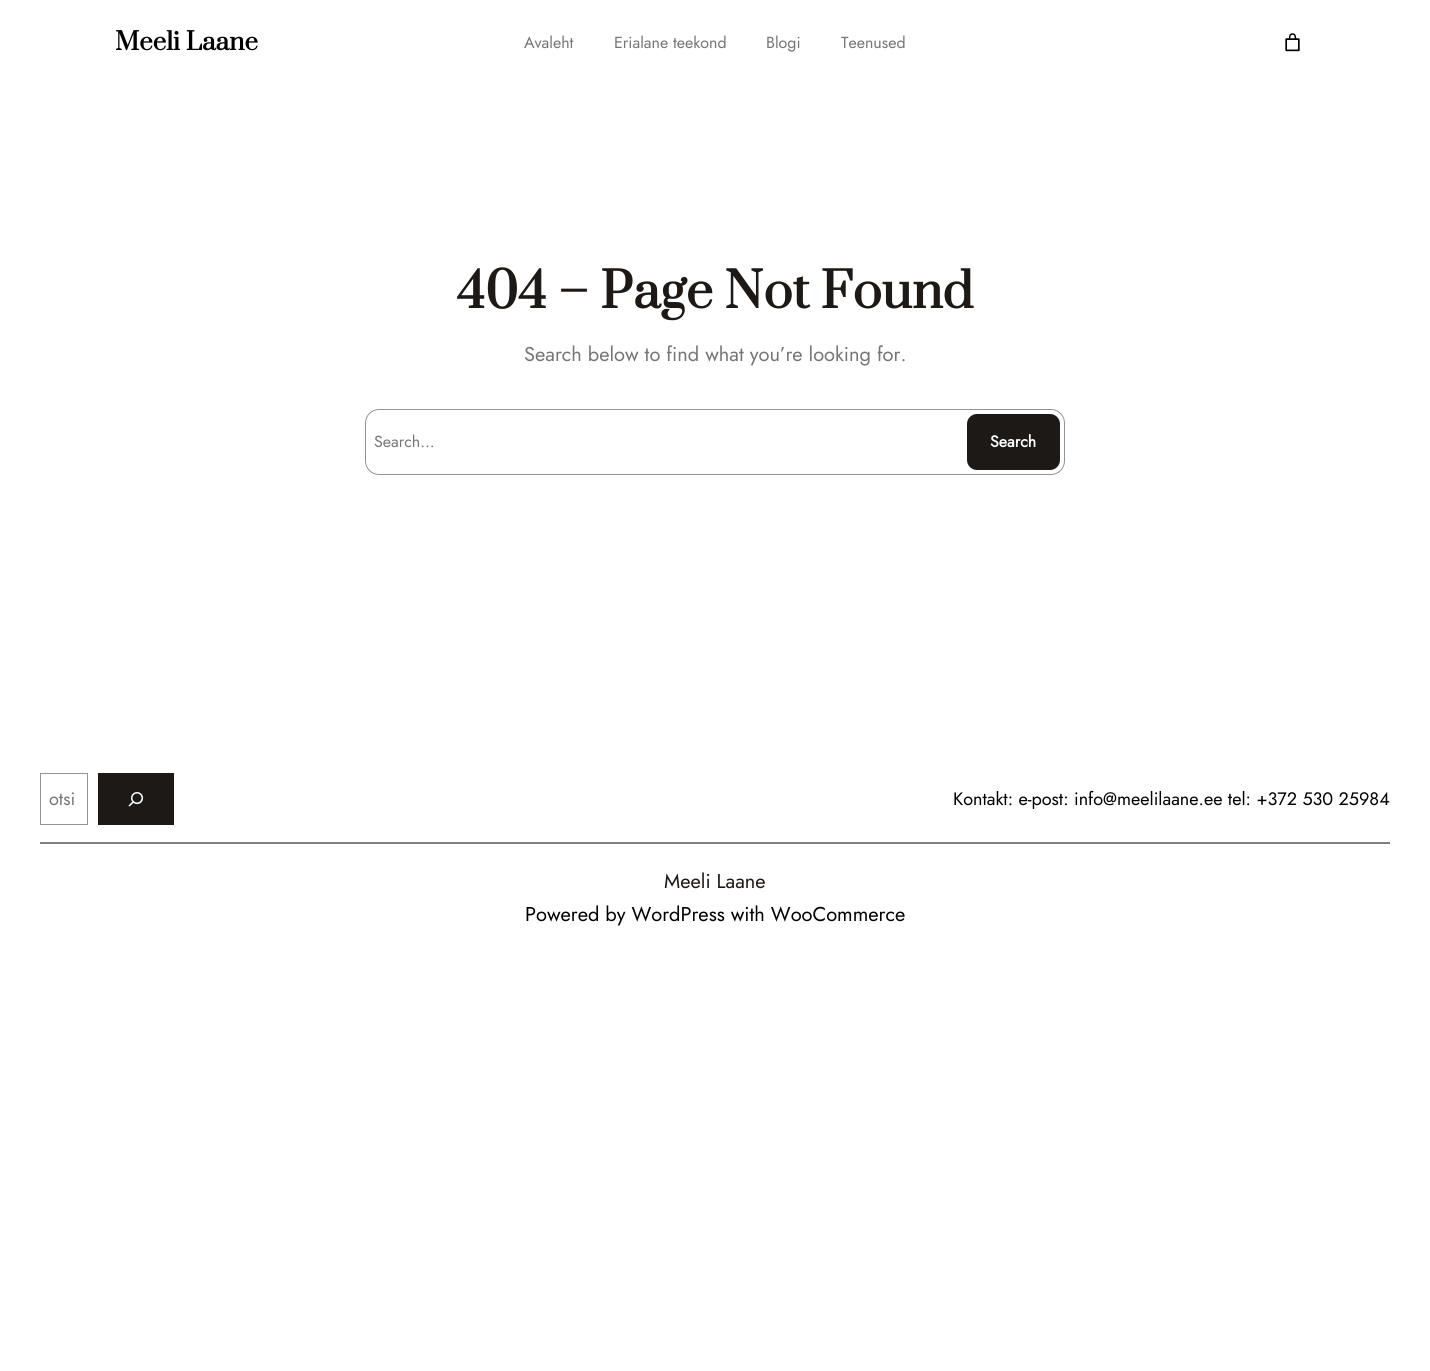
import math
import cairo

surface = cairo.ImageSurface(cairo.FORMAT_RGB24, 1430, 1371)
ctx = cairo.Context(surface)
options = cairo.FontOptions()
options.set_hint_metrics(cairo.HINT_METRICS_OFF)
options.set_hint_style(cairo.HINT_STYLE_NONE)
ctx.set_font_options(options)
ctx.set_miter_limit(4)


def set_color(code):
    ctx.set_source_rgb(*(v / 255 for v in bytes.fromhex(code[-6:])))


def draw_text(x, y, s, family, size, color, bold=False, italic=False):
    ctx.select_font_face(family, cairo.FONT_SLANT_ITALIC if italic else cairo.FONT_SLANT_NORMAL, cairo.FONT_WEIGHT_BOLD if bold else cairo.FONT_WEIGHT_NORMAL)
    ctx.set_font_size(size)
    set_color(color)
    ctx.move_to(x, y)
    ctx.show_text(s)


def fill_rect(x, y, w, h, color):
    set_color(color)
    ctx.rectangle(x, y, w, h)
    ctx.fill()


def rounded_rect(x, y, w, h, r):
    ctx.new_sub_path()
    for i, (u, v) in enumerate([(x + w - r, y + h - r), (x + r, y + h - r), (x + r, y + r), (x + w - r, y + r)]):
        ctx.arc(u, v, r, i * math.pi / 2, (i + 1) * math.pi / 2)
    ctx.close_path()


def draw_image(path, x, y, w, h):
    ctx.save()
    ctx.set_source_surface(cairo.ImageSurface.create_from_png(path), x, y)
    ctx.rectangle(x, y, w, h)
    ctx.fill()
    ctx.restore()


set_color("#ffffff")
ctx.paint()
draw_text(115, 50, "Meeli Laane", "Prata", 24, "#000000", bold=True)
draw_text(524, 48, "Avaleht", "Jost", 16, "#757575")
draw_text(614, 48, "Erialane teekond", "Jost", 16, "#757575")
draw_text(766, 48, "Blogi", "Jost", 16, "#757575")
draw_text(841, 48, "Teenused", "Jost", 16, "#757575")
draw_image("assets/img1.png", 1285, 33, 15, 19)
draw_text(457, 308, "404 – Page Not Found", "Prata", 48, "#1c1917", bold=True)
draw_text(524, 361, "Search below to find what you’re looking for.", "Jost", 20, "#757575")
rounded_rect(365.5, 409.5, 699, 65, 13.5)
set_color("#949494")
ctx.set_line_width(1)
ctx.stroke()
draw_text(374, 447, "Search...", "Jost", 16, "#757575")
set_color("#1c1917")
rounded_rect(967, 414, 93, 56, 10)
ctx.fill()
draw_text(990, 447, "Search", "Jost", 16, "#ffffff", bold=True)
ctx.rectangle(40.5, 773.5, 47, 51)
set_color("#949494")
ctx.stroke()
draw_text(49, 805, "otsi", "Jost", 18, "#757575")
fill_rect(98, 773, 76, 52, "#1c1917")
draw_image("assets/img2.png", 128, 792, 16, 15)
draw_text(953, 805, "Kontakt: e-post: info@meelilaane.ee tel: +372 530 25984", "Jost", 18, "#000000")
fill_rect(40, 842, 1350, 2, "#808080")
draw_text(664, 888, "Meeli Laane", "Jost", 20, "#1c1917")
draw_text(525, 921, "Powered by WordPress with WooCommerce", "Jost", 20, "#000000")
surface.write_to_png("output.png")
